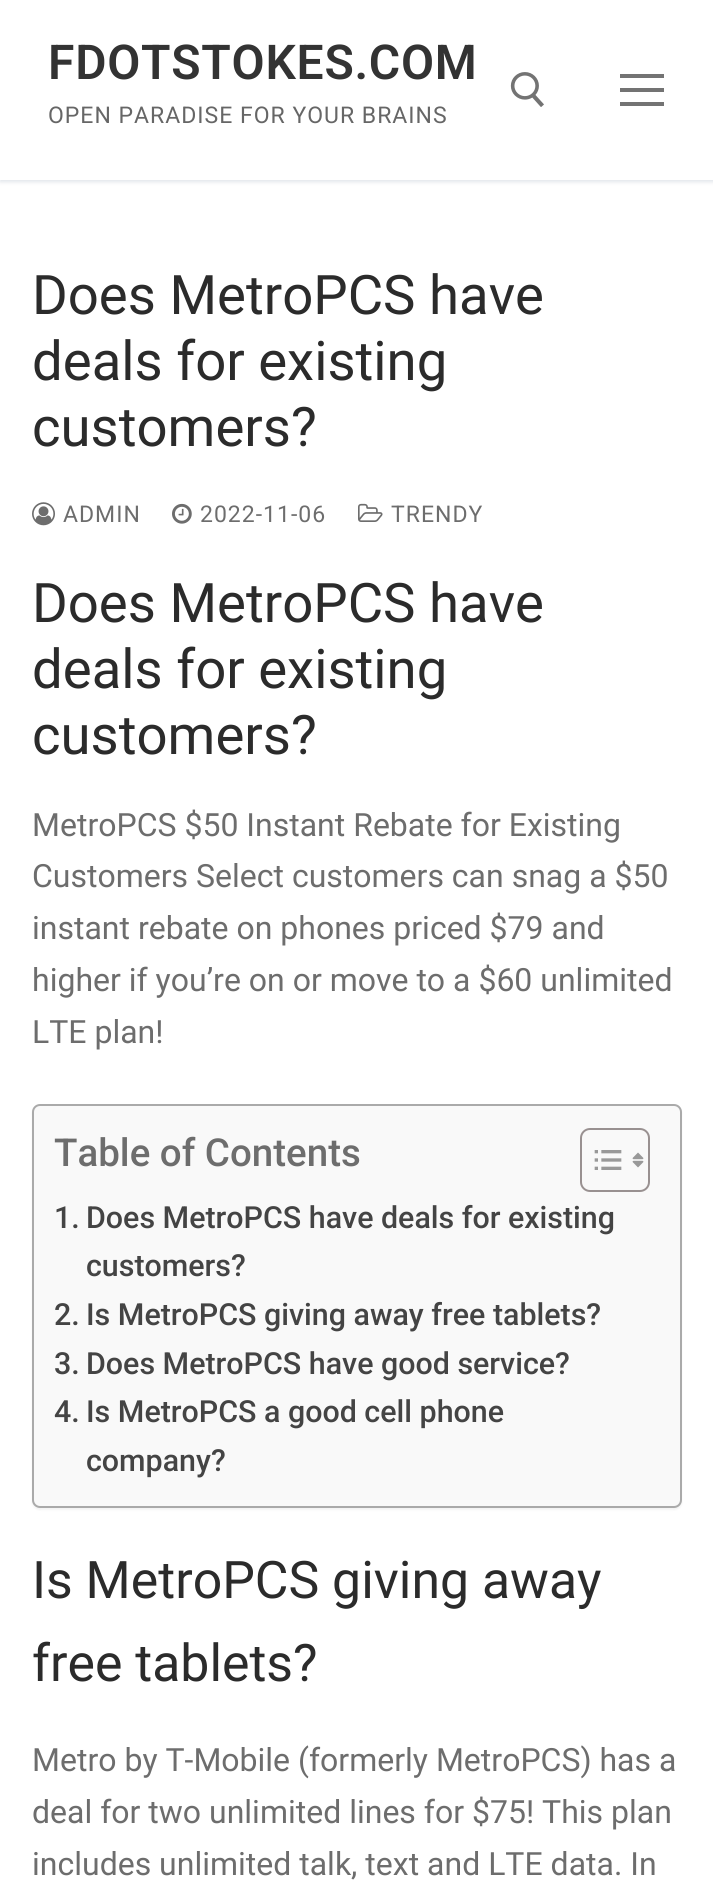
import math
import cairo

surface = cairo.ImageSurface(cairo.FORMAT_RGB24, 713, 1892)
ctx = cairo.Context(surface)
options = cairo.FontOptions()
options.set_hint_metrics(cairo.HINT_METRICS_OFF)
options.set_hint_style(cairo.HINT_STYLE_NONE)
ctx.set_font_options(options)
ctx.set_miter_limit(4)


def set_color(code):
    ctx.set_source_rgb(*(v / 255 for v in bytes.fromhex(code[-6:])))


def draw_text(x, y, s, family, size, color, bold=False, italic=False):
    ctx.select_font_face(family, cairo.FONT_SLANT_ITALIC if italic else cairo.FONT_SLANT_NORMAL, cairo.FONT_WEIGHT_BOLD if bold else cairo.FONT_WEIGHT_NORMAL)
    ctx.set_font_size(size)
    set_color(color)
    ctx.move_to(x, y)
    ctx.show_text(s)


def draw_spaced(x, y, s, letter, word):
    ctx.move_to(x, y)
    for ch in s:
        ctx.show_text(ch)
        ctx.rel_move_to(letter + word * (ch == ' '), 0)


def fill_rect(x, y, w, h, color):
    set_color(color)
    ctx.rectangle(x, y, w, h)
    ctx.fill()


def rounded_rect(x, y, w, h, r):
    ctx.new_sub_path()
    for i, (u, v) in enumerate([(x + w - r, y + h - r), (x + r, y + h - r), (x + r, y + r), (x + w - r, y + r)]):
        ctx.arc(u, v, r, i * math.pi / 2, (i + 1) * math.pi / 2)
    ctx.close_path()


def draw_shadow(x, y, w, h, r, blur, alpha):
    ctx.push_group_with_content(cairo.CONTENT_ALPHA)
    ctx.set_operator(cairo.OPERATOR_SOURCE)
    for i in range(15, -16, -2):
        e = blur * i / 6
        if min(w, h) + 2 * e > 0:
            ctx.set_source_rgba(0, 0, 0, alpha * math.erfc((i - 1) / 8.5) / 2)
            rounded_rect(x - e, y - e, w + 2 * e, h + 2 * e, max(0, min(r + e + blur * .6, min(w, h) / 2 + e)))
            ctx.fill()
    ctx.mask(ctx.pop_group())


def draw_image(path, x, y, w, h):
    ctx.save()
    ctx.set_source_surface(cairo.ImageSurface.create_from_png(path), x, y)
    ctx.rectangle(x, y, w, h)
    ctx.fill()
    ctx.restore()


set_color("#ffffff")
ctx.paint()
ctx.save()
ctx.rectangle(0, 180, 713, 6)
ctx.clip()
set_color("#e1e5ea")
draw_shadow(0, 2, 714, 180, 0, 2, 1)
ctx.restore()
ctx.select_font_face("Roboto SemiBold")
ctx.set_font_size(48)
set_color("#333333")
draw_spaced(48, 79, "FDOTSTOKES.COM", 0.75, 0)
ctx.select_font_face("Roboto")
ctx.set_font_size(23)
set_color("#666666")
draw_spaced(48, 123, "OPEN PARADISE FOR YOUR BRAINS", 1, 0)
draw_image("assets/img1.png", 510, 72, 34, 35)
fill_rect(620, 88, 44, 4, "#737373")
fill_rect(620, 74, 44, 4, "#737373")
fill_rect(620, 102, 44, 4, "#737373")
draw_text(32, 314, "Does MetroPCS have", "Roboto", 54.5, "#2b2b2b")
draw_text(32, 380, "deals for existing", "Roboto", 54.5, "#2b2b2b")
draw_text(32, 446, "customers?", "Roboto", 54.5, "#2b2b2b")
draw_image("assets/img2.png", 32, 502, 23, 24)
ctx.set_font_size(23)
set_color("#6d6d6d")
draw_spaced(63, 522, "ADMIN", 1, 0)
draw_image("assets/img3.png", 172, 503, 20, 21)
draw_spaced(200, 522, "2022-11-06", 1, 0)
draw_image("assets/img4.png", 358, 503, 25, 19)
draw_spaced(391, 522, "TRENDY", 1, 0)
draw_text(32, 622, "Does MetroPCS have", "Roboto", 54.5, "#2b2b2b")
draw_text(32, 688, "deals for existing", "Roboto", 54.5, "#2b2b2b")
draw_text(32, 754, "customers?", "Roboto", 54.5, "#2b2b2b")
draw_text(32, 836, "MetroPCS $50 Instant Rebate for Existing", "Roboto", 32, "#6d6d6d")
draw_text(32, 887, "Customers Select customers can snag a $50", "Roboto", 32, "#6d6d6d")
draw_text(32, 939, "instant rebate on phones priced $79 and", "Roboto", 32, "#6d6d6d")
draw_text(32, 991, "higher if you’re on or move to a $60 unlimited", "Roboto", 32, "#6d6d6d")
draw_text(32, 1043, "LTE plan!", "Roboto", 32, "#6d6d6d")
set_color("#000000")
draw_shadow(32, 1106, 650, 404, 8, 1, 0.05)
set_color("#f9f9f9")
rounded_rect(33, 1105, 648, 402, 7)
ctx.fill_preserve()
set_color("#aaaaaa")
ctx.stroke()
draw_text(54, 1166, "Table of Contents", "Roboto Medium", 38.5, "#6d6d6d")
rounded_rect(581, 1129, 68, 62, 9)
set_color("#999191")
ctx.stroke()
draw_image("assets/img5.png", 594, 1150, 28, 20)
draw_image("assets/img6.png", 632, 1152, 12, 16)
draw_text(54, 1228, "1.", "Roboto Medium", 30.4, "#444444")
draw_text(86, 1228, "Does MetroPCS have deals for existing", "Roboto Medium", 30.4, "#444444")
draw_text(86, 1276, "customers?", "Roboto Medium", 30.4, "#444444")
draw_text(54, 1325, "2.", "Roboto Medium", 30.4, "#444444")
draw_text(86, 1325, "Is MetroPCS giving away free tablets?", "Roboto Medium", 30.4, "#444444")
draw_text(54, 1374, "3.", "Roboto Medium", 30.4, "#444444")
draw_text(86, 1374, "Does MetroPCS have good service?", "Roboto Medium", 30.4, "#444444")
draw_text(54, 1422, "4.", "Roboto Medium", 30.4, "#444444")
draw_text(86, 1422, "Is MetroPCS a good cell phone", "Roboto Medium", 30.4, "#444444")
draw_text(86, 1471, "company?", "Roboto Medium", 30.4, "#444444")
draw_text(32, 1598, "Is MetroPCS giving away", "Roboto", 51.75, "#2b2b2b")
draw_text(32, 1681, "free tablets?", "Roboto", 51.75, "#2b2b2b")
draw_text(32, 1771, "Metro by T-Mobile (formerly MetroPCS) has a", "Roboto", 32, "#6d6d6d")
draw_text(32, 1823, "deal for two unlimited lines for $75! This plan", "Roboto", 32, "#6d6d6d")
draw_text(32, 1875, "includes unlimited talk, text and LTE data. In", "Roboto", 32, "#6d6d6d")
surface.write_to_png("output.png")
